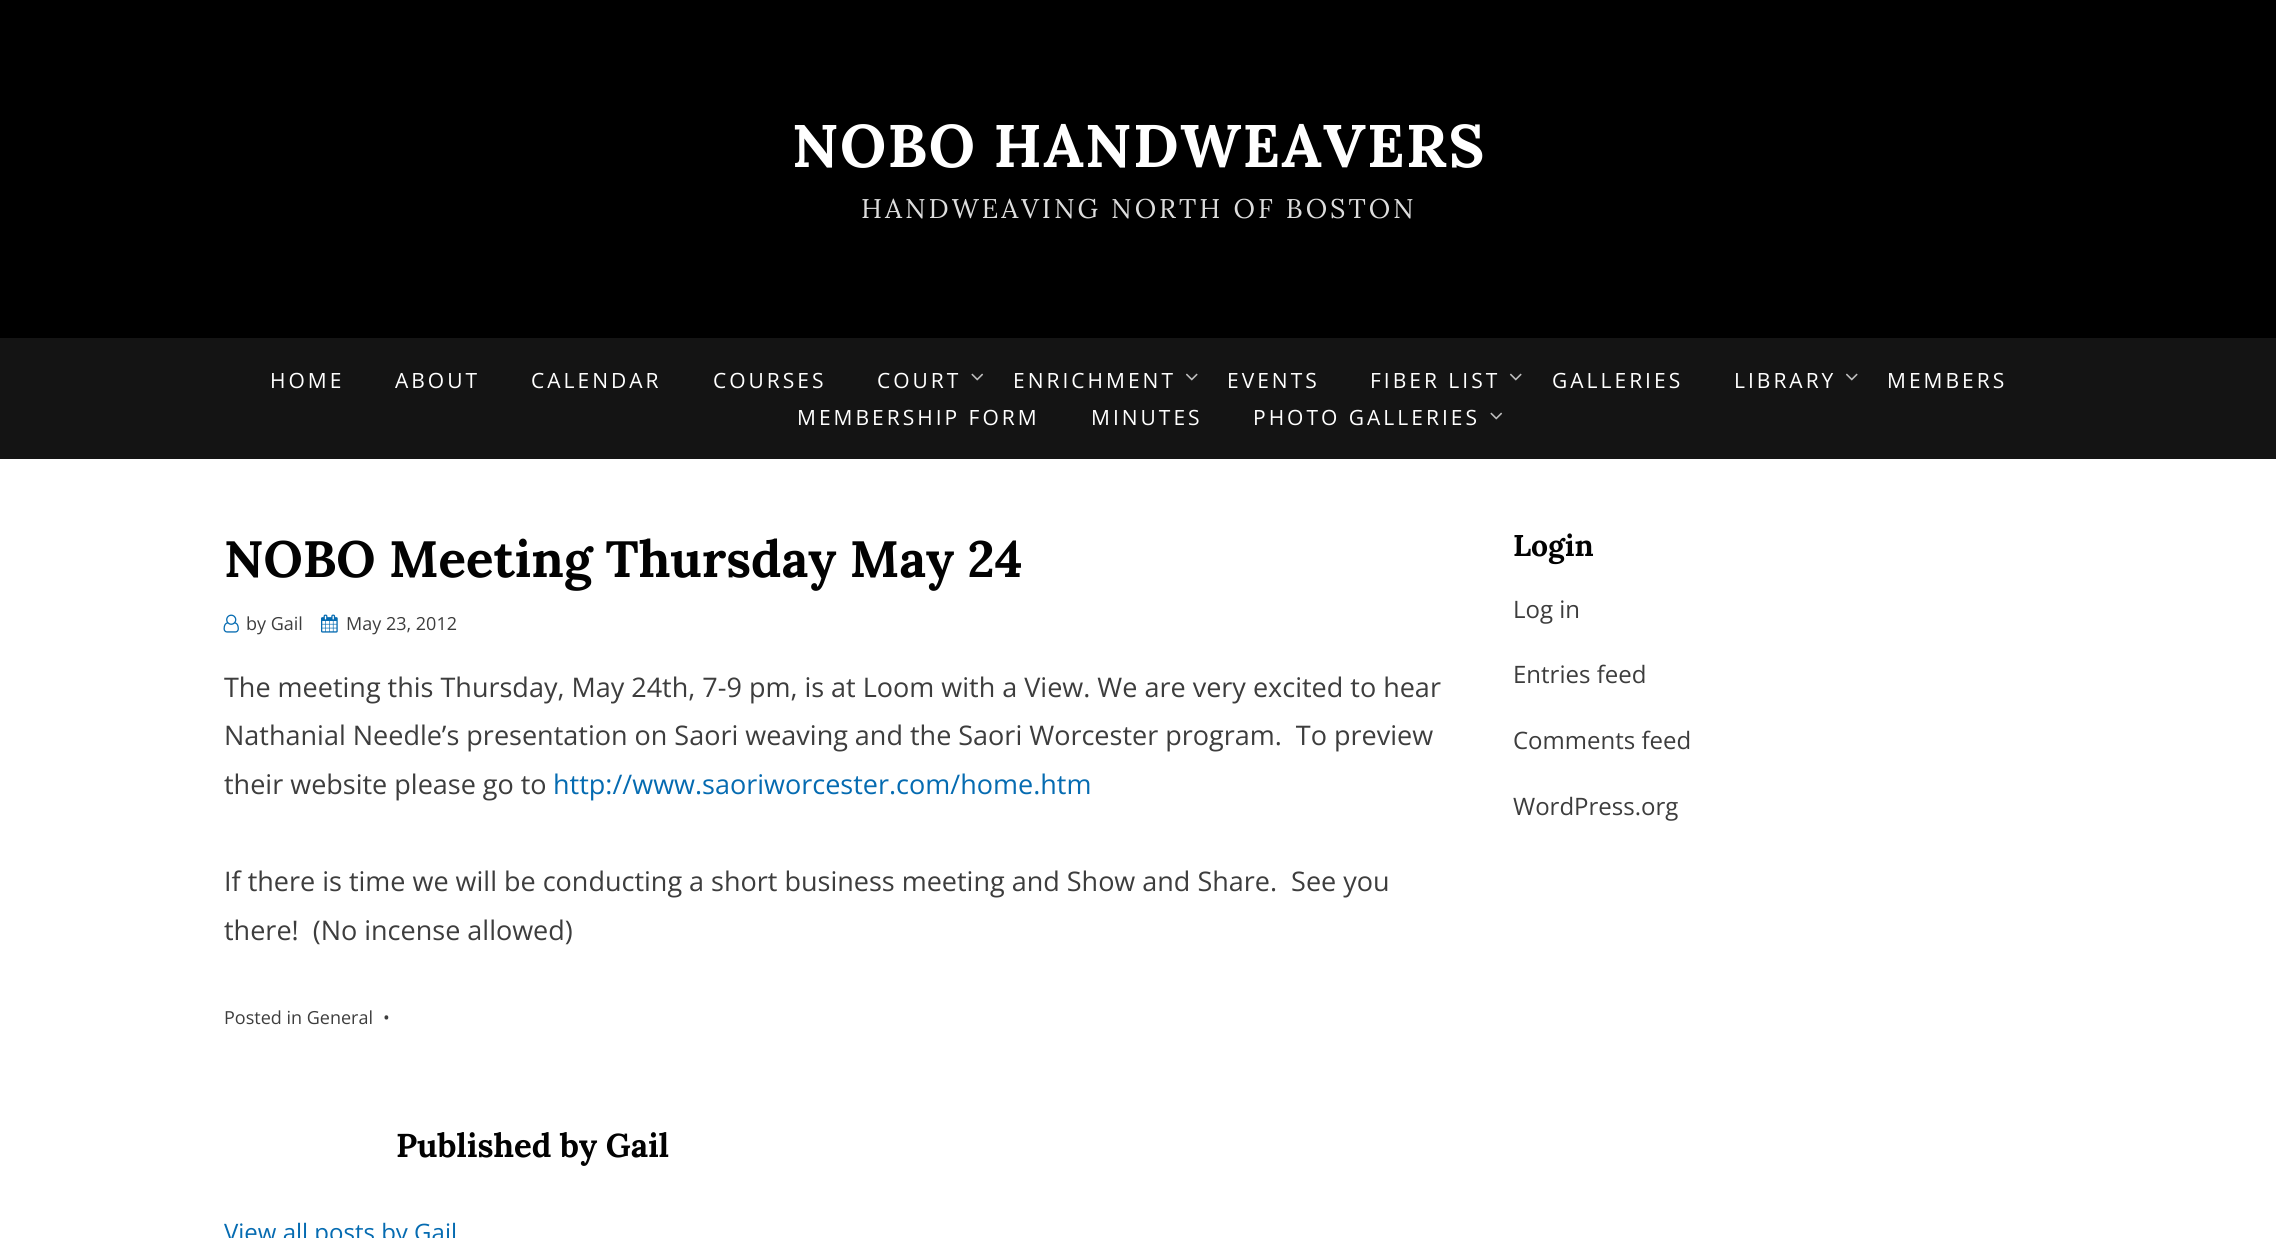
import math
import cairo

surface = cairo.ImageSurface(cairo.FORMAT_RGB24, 2276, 1238)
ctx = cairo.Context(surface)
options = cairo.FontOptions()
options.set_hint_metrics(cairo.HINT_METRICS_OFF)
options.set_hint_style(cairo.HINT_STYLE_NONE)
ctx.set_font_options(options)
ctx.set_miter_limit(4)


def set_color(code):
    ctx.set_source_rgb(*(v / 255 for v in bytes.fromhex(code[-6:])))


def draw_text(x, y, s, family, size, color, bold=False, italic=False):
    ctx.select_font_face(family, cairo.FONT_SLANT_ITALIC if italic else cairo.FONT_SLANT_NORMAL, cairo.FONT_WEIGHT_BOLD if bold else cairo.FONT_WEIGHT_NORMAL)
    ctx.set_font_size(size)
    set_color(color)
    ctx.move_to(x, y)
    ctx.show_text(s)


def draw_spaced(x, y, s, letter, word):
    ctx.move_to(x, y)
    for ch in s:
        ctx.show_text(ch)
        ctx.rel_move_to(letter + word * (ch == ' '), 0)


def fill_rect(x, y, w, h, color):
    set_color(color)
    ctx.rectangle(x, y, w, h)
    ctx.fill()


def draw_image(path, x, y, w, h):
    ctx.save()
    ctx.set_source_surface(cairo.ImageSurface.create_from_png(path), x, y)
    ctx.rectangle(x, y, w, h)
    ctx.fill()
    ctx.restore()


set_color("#ffffff")
ctx.paint()
fill_rect(0, 0, 2276, 338, "#000000")
ctx.select_font_face("Lora", cairo.FONT_SLANT_NORMAL, cairo.FONT_WEIGHT_BOLD)
ctx.set_font_size(60)
set_color("#ffffff")
draw_spaced(792, 167, "NOBO HANDWEAVERS", 1.5, 0)
ctx.select_font_face("Lora")
ctx.set_font_size(27)
set_color("#dddddd")
draw_spaced(861, 218, "HANDWEAVING NORTH OF BOSTON", 3, 0)
fill_rect(0, 338, 2276, 121, "#141414")
ctx.select_font_face("Open Sans")
ctx.set_font_size(21)
set_color("#ffffff")
draw_spaced(270, 388, "HOME", 3, 0)
draw_spaced(395, 388, "ABOUT", 3, 0)
draw_spaced(531, 388, "CALENDAR", 3, 0)
draw_spaced(713, 388, "COURSES", 3, 0)
draw_spaced(877, 388, "COURT", 3, 0)
draw_image("assets/img1.png", 971, 373, 13, 8)
draw_spaced(1013, 388, "ENRICHMENT", 3, 0)
draw_image("assets/img2.png", 1185, 373, 13, 8)
draw_spaced(1227, 388, "EVENTS", 3, 0)
draw_spaced(1370, 388, "FIBER LIST", 3, 0)
draw_image("assets/img2.png", 1509, 373, 13, 8)
draw_spaced(1552, 388, "GALLERIES", 3, 0)
draw_spaced(1734, 388, "LIBRARY", 3, 0)
draw_image("assets/img2.png", 1845, 373, 13, 8)
draw_spaced(1887, 388, "MEMBERS", 3, 0)
draw_spaced(797, 425, "MEMBERSHIP FORM", 3, 0)
draw_spaced(1091, 425, "MINUTES", 3, 0)
draw_spaced(1253, 425, "PHOTO GALLERIES", 3, 0)
draw_image("assets/img1.png", 1490, 412, 13, 8)
draw_text(224, 577, "NOBO Meeting Thursday May 24", "Lora", 51, "#020202", bold=True)
draw_image("assets/img3.png", 223, 614, 16, 19)
draw_text(246, 630, "by Gail", "Open Sans", 18, "#3d3d3d")
draw_image("assets/img4.png", 321, 614, 17, 19)
draw_text(346, 630, "May 23, 2012", "Open Sans", 18, "#3d3d3d")
draw_text(224, 697, "The meeting this Thursday, May 24th, 7-9 pm, is at Loom with a View. We are very excited to hear", "Open Sans", 27, "#3d3d3d")
draw_text(224, 745, "Nathanial Needle’s presentation on Saori weaving and the Saori Worcester program.  To preview", "Open Sans", 27, "#3d3d3d")
draw_text(224, 794, "their website please go to", "Open Sans", 27, "#3d3d3d")
draw_text(553, 794, "http://www.saoriworcester.com/home.htm", "Open Sans", 27, "#056bb1")
draw_text(224, 891, "If there is time we will be conducting a short business meeting and Show and Share.  See you", "Open Sans", 27, "#3d3d3d")
draw_text(224, 940, "there!  (No incense allowed)", "Open Sans", 27, "#3d3d3d")
draw_text(224, 1024, "Posted in General", "Open Sans", 18, "#3d3d3d")
draw_text(383, 1024, "•", "Open Sans", 18, "#3d3d3d")
draw_text(396, 1157, "Published by Gail", "Lora", 33, "#020202", bold=True)
draw_text(224, 1241, "View all posts by Gail", "Open Sans", 24, "#056bb1")
draw_text(1513, 556, "Login", "Lora", 30, "#020202", bold=True)
draw_text(1513, 618, "Log in", "Open Sans", 24, "#3d3d3d")
draw_text(1513, 683, "Entries feed", "Open Sans", 24, "#3d3d3d")
draw_text(1513, 749, "Comments feed", "Open Sans", 24, "#3d3d3d")
draw_text(1513, 815, "WordPress.org", "Open Sans", 24, "#3d3d3d")
surface.write_to_png("output.png")
